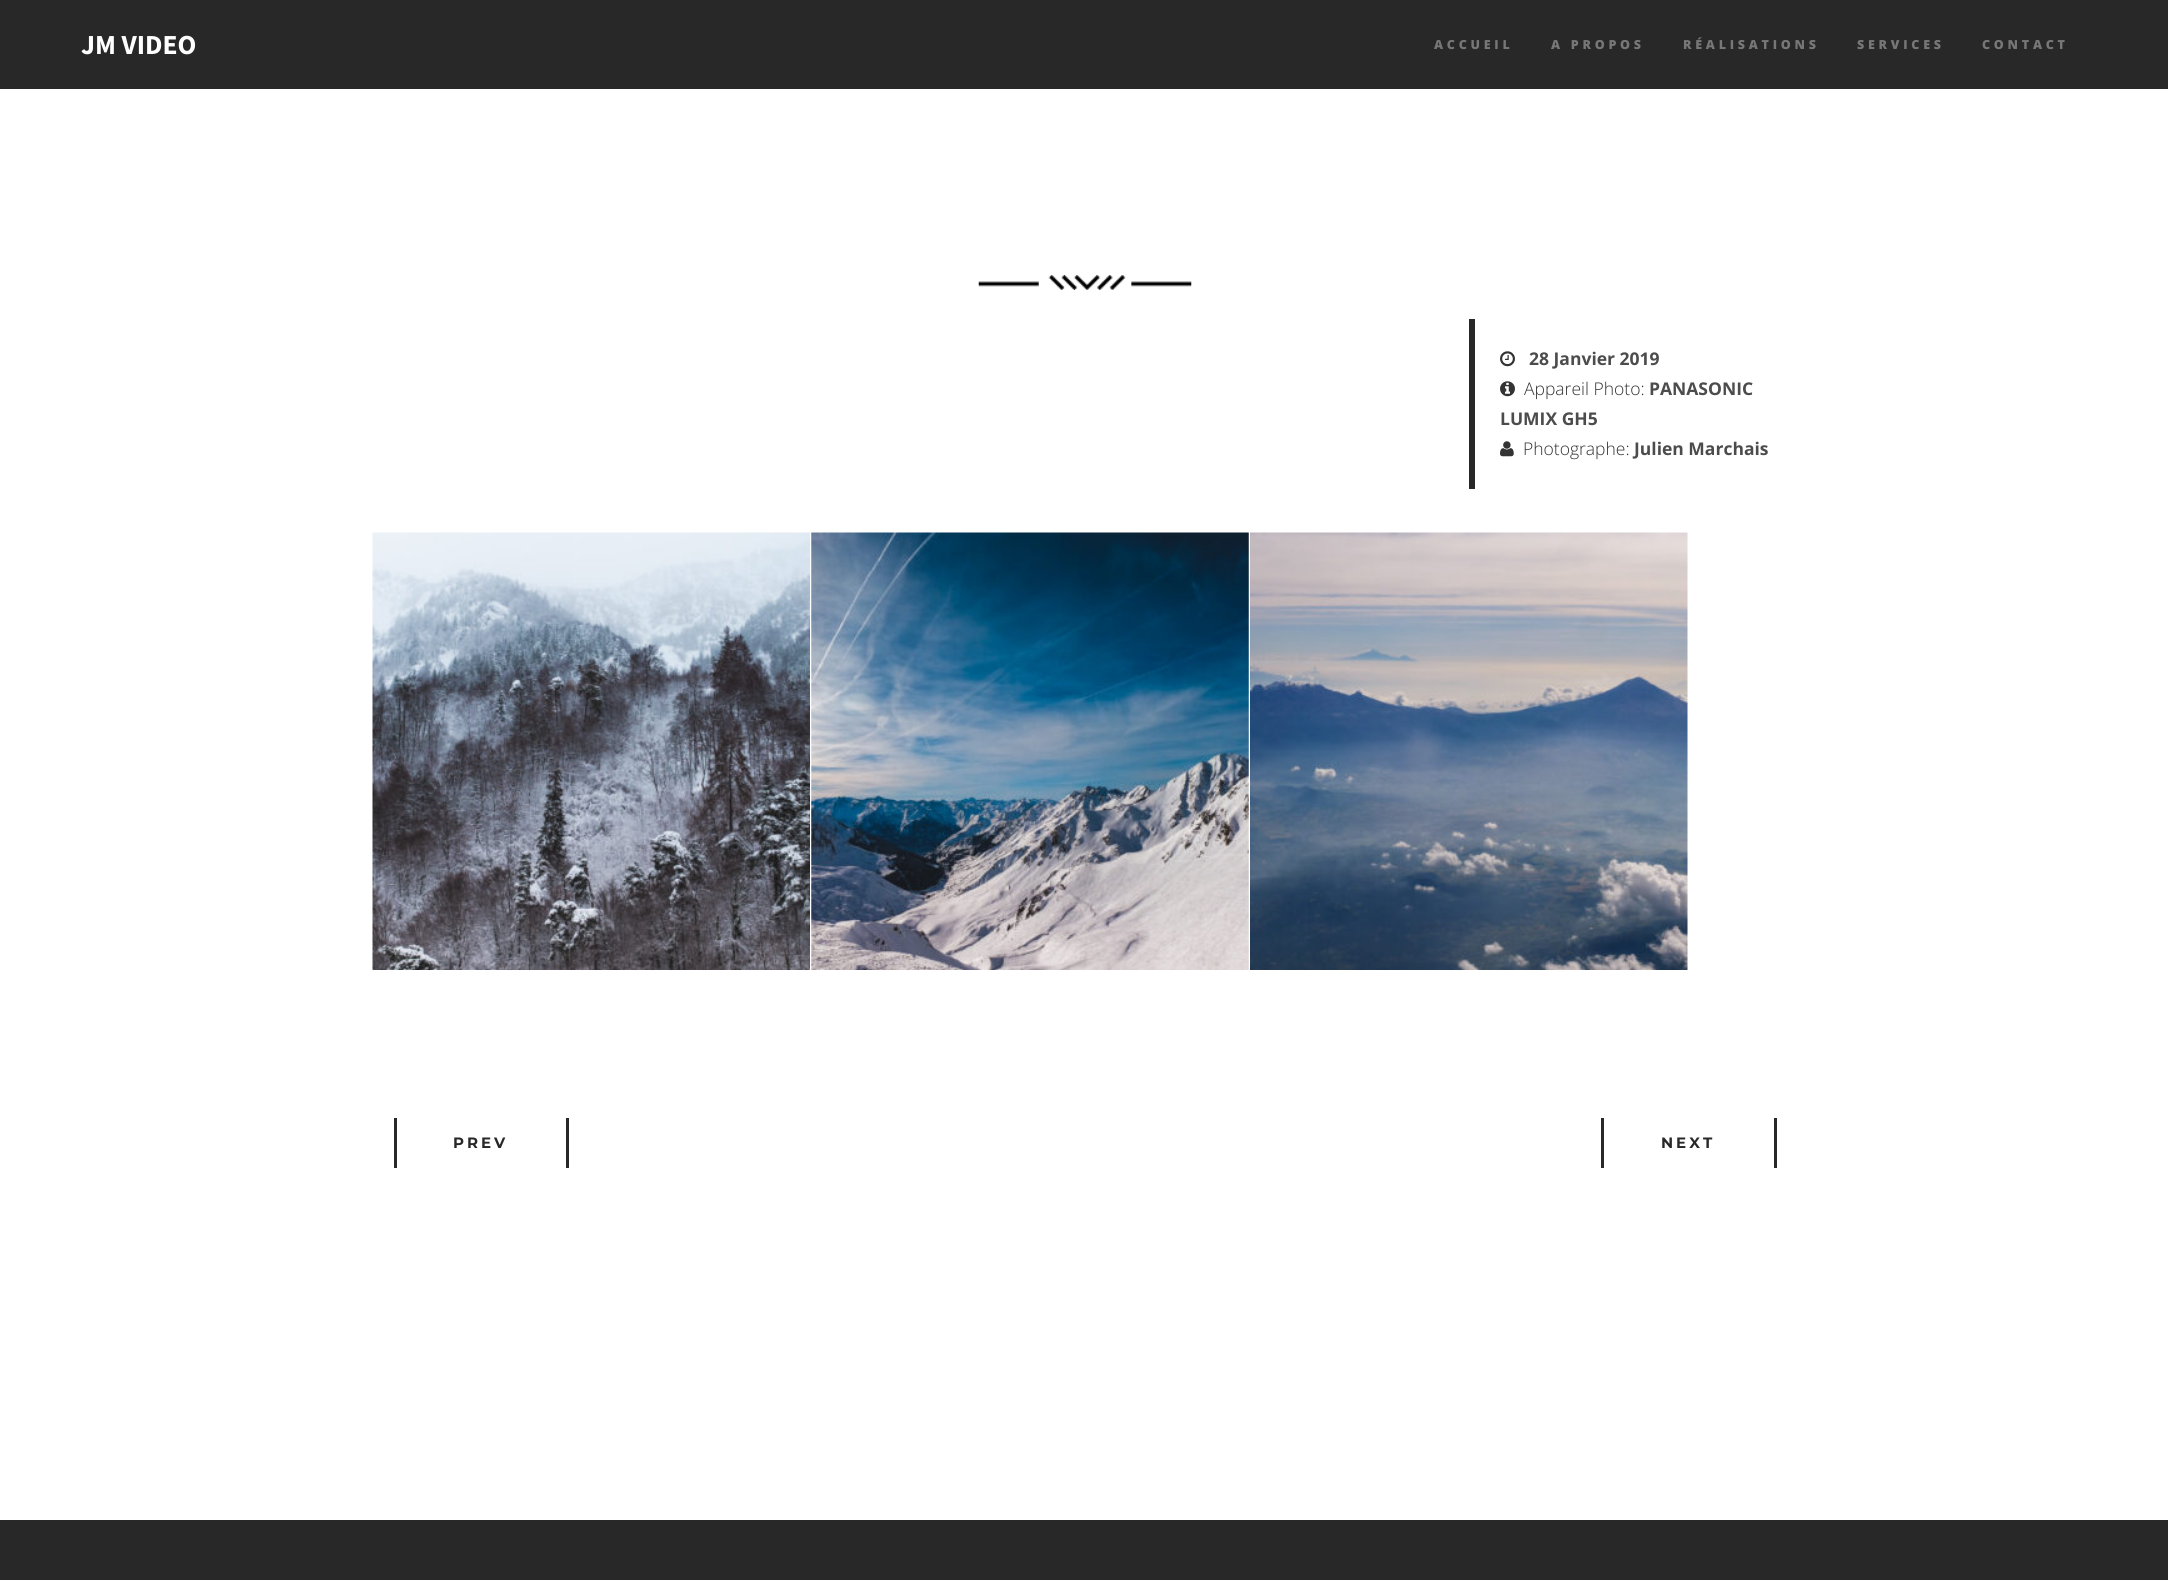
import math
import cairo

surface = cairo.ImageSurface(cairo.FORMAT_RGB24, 2168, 1580)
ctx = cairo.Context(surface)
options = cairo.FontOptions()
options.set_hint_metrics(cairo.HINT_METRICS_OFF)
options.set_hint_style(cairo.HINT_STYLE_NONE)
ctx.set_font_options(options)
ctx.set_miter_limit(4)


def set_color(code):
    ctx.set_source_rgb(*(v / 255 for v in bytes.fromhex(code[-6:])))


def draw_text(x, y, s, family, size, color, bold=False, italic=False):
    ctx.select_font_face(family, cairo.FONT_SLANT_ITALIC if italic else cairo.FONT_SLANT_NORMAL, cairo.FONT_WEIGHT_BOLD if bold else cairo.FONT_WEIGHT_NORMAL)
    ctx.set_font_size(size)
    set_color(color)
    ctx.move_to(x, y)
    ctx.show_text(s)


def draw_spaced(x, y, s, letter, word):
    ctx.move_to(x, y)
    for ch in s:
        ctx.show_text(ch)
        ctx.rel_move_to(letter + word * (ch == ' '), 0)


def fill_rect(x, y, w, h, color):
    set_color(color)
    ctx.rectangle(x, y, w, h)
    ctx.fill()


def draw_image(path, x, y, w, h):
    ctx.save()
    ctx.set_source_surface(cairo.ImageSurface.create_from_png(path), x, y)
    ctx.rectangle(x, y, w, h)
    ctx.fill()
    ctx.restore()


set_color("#ffffff")
ctx.paint()
fill_rect(0, 0, 2168, 89, "#282828")
draw_text(81, 54, "JM VIDEO", "Source Sans Pro", 27.5, "#ffffff", bold=True)
ctx.select_font_face("Open Sans ExtraBold")
ctx.set_font_size(12.5)
set_color("#777777")
draw_spaced(1434, 49, "ACCUEIL", 3.75, 0)
draw_spaced(1551, 49, "A PROPOS", 3.75, 0)
draw_spaced(1683, 49, "RÉALISATIONS", 3.75, 0)
draw_spaced(1857, 49, "SERVICES", 3.75, 0)
draw_spaced(1982, 49, "CONTACT", 3.75, 0)
draw_image("assets/img1.png", 978, 275, 214, 15)
fill_rect(1469, 319, 6, 170, "#282828")
draw_image("assets/img2.png", 1500, 351, 15, 16)
draw_text(1529, 365, "28 Janvier 2019", "Open Sans", 17.5, "#4c4c4c", bold=True)
draw_image("assets/img3.png", 1500, 381, 15, 16)
draw_text(1524, 395, "Appareil Photo:", "Open Sans Light", 17.5, "#333333")
draw_text(1649, 395, "PANASONIC", "Open Sans", 17.5, "#4c4c4c", bold=True)
draw_text(1500, 425, "LUMIX GH5", "Open Sans", 17.5, "#4c4c4c", bold=True)
draw_image("assets/img4.png", 1500, 441, 14, 16)
draw_text(1523, 455, "Photographe:", "Open Sans Light", 17.5, "#333333")
draw_text(1634, 455, "Julien Marchais", "Open Sans", 17.5, "#4c4c4c", bold=True)
draw_image("assets/img5.png", 372, 532, 438, 438)
draw_image("assets/img6.png", 811, 532, 438, 438)
draw_image("assets/img7.png", 1250, 532, 438, 438)
fill_rect(394, 1118, 3, 50, "#282828")
ctx.select_font_face("Montserrat", cairo.FONT_SLANT_NORMAL, cairo.FONT_WEIGHT_BOLD)
ctx.set_font_size(15)
draw_spaced(453, 1148, "PREV", 3, 0)
fill_rect(566, 1118, 3, 50, "#282828")
fill_rect(1601, 1118, 3, 50, "#282828")
draw_spaced(1661, 1148, "NEXT", 3, 0)
fill_rect(1774, 1118, 3, 50, "#282828")
fill_rect(0, 1520, 2168, 60, "#282828")
surface.write_to_png("output.png")
